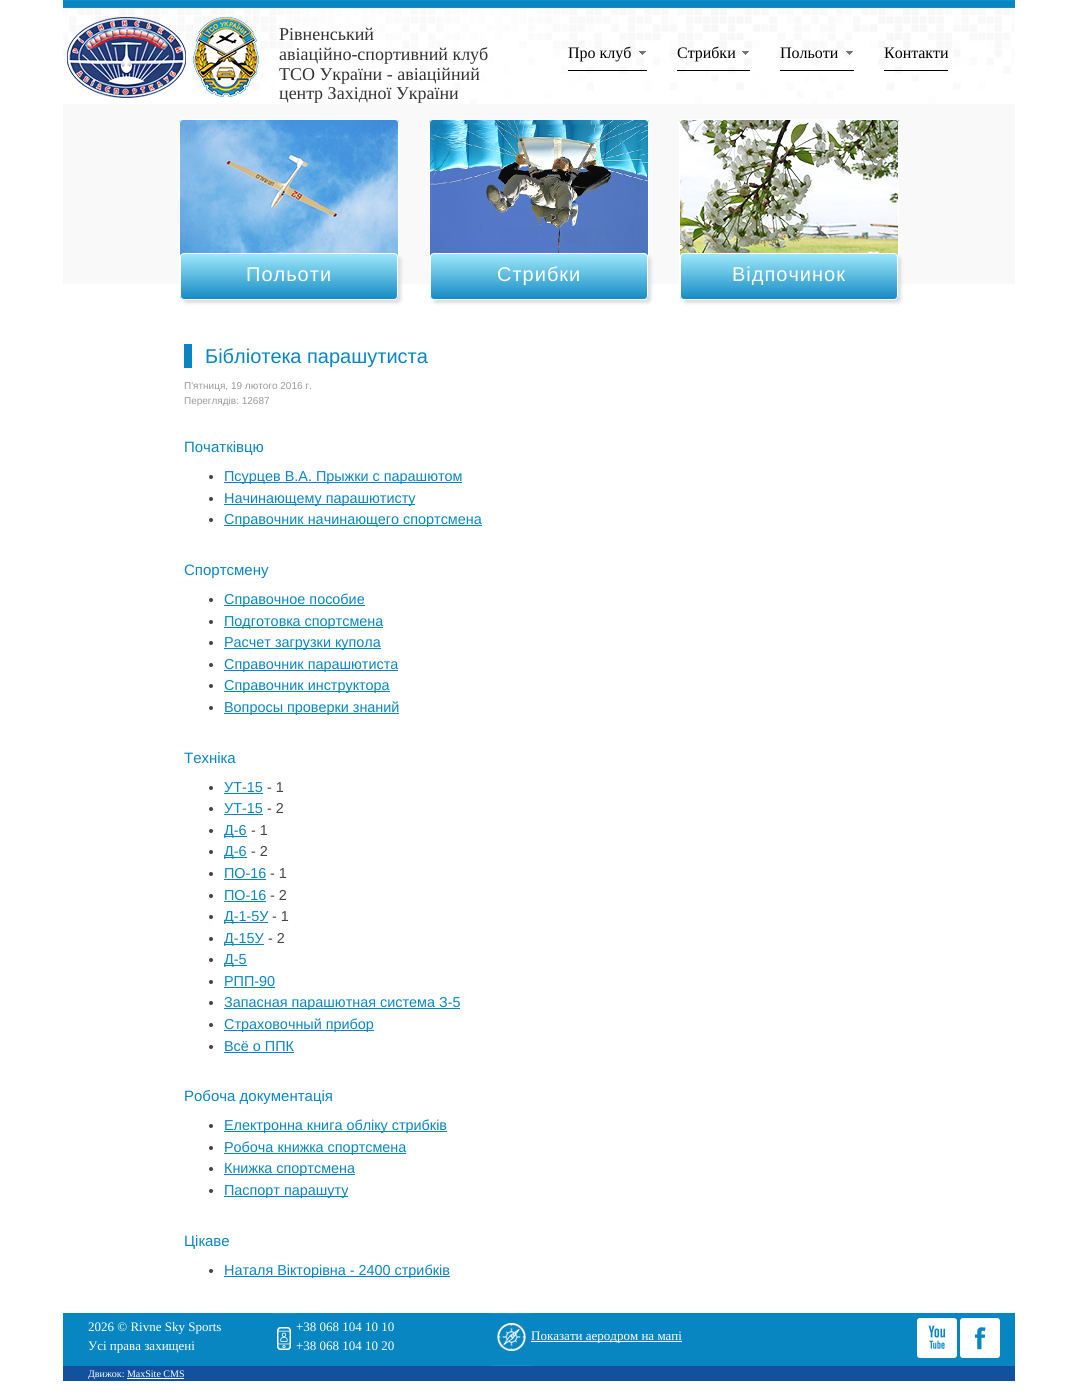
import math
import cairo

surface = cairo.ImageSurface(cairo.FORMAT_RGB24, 1078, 1395)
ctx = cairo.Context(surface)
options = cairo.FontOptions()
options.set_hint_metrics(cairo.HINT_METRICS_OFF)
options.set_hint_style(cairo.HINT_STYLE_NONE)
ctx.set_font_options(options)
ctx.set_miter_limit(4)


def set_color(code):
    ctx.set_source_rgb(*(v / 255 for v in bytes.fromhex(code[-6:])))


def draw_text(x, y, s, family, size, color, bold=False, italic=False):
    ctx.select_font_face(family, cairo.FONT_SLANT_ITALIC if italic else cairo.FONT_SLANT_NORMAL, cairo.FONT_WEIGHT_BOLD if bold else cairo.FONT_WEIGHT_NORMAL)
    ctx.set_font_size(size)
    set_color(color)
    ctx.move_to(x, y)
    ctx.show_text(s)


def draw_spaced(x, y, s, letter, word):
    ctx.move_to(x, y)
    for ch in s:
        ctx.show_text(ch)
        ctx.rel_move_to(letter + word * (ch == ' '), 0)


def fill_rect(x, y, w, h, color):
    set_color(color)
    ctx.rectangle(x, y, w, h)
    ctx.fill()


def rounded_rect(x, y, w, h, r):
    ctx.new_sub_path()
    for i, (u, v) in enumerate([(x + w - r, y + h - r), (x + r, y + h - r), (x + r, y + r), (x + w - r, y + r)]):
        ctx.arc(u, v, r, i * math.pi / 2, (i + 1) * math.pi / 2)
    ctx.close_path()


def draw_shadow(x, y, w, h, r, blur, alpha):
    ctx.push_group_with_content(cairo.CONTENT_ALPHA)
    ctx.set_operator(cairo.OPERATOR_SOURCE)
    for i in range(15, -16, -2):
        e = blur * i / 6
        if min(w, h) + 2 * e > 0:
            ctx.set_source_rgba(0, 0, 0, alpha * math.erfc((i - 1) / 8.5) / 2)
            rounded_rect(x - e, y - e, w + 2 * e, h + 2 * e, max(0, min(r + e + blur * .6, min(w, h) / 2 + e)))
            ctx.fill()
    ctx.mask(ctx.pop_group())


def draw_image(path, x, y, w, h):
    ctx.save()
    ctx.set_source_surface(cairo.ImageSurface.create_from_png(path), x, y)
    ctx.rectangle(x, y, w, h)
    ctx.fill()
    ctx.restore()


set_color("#ffffff")
ctx.paint()
draw_image("assets/img1.png", 63, 0, 952, 104)
draw_image("assets/img2.png", 67, 17, 192, 81)
draw_text(279, 40, "Рівненський", "Liberation Serif", 18, "#333333")
draw_text(279, 60, "авіаційно-спортивний клуб", "Liberation Serif", 18, "#333333")
draw_text(279, 80, "TCO України - авіаційний", "Liberation Serif", 18, "#333333")
draw_text(279, 99, "центр Західної України", "Liberation Serif", 18, "#333333")
draw_image("assets/img3.png", 639, 51, 7, 4)
fill_rect(568, 70, 79, 1, "#000000")
draw_text(568, 58, "Про клуб", "Liberation Serif", 16, "#000000")
draw_image("assets/img3.png", 742, 51, 7, 4)
fill_rect(677, 70, 73, 1, "#000000")
draw_text(677, 58, "Стрибки", "Liberation Serif", 16, "#000000")
draw_image("assets/img4.png", 846, 51, 7, 4)
fill_rect(780, 70, 74, 1, "#000000")
draw_text(780, 58, "Польоти", "Liberation Serif", 16, "#000000")
fill_rect(884, 70, 64, 1, "#000000")
draw_text(884, 58, "Контакти", "Liberation Serif", 16, "#000000")
fill_rect(63, 104, 952, 180, "#f9f9f9")
draw_image("assets/img5.png", 179, 120, 220, 135)
rounded_rect(179.5, 119.5, 219, 181, 3.5)
set_color("#ffffff")
ctx.set_line_width(1)
ctx.stroke()
set_color("#dddddd")
draw_shadow(183, 256, 218, 47, 4, 1.5, 1)
ctx.save()
rounded_rect(180, 253, 218, 47, 4)
ctx.clip()
gradient = cairo.LinearGradient(289, 254, 289, 299)
gradient.add_color_stop_rgba(0, 0.616, 0.906, 0.976, 1)
gradient.add_color_stop_rgba(1, 0.082, 0.549, 0.773, 1)
ctx.set_source(gradient)
ctx.rectangle(180, 254, 218, 45)
ctx.fill()
ctx.restore()
rounded_rect(180.5, 253.5, 217, 46, 3.5)
set_color("#ffffff")
ctx.stroke()
ctx.select_font_face("Liberation Sans")
ctx.set_font_size(20)
draw_spaced(246, 281, "Польоти", 1, 0)
draw_image("assets/img6.png", 429, 120, 220, 135)
rounded_rect(429.5, 119.5, 219, 181, 3.5)
ctx.stroke()
set_color("#dddddd")
draw_shadow(433, 256, 218, 47, 4, 1.5, 1)
ctx.save()
rounded_rect(430, 253, 218, 47, 4)
ctx.clip()
gradient = cairo.LinearGradient(539, 254, 539, 299)
gradient.add_color_stop_rgba(0, 0.616, 0.906, 0.976, 1)
gradient.add_color_stop_rgba(1, 0.082, 0.549, 0.773, 1)
ctx.set_source(gradient)
ctx.rectangle(430, 254, 218, 45)
ctx.fill()
ctx.restore()
rounded_rect(430.5, 253.5, 217, 46, 3.5)
set_color("#ffffff")
ctx.stroke()
draw_spaced(497, 281, "Стрибки", 1, 0)
draw_image("assets/img7.png", 679, 120, 220, 135)
rounded_rect(679.5, 119.5, 219, 181, 3.5)
ctx.stroke()
set_color("#dddddd")
draw_shadow(683, 256, 218, 47, 4, 1.5, 1)
ctx.save()
rounded_rect(680, 253, 218, 47, 4)
ctx.clip()
gradient = cairo.LinearGradient(789, 254, 789, 299)
gradient.add_color_stop_rgba(0, 0.616, 0.906, 0.976, 1)
gradient.add_color_stop_rgba(1, 0.082, 0.549, 0.773, 1)
ctx.set_source(gradient)
ctx.rectangle(680, 254, 218, 45)
ctx.fill()
ctx.restore()
rounded_rect(680.5, 253.5, 217, 46, 3.5)
set_color("#ffffff")
ctx.stroke()
draw_spaced(732, 281, "Відпочинок", 1, 0)
fill_rect(184, 344, 8, 24, "#0886c2")
draw_text(205, 363, "Бібліотека парашутиста", "Liberation Sans", 20, "#0886c2")
draw_text(184, 389, "П'ятниця, 19 лютого 2016 г.", "Liberation Sans", 10, "#999999")
draw_text(184, 404, "Переглядів: 12687", "Liberation Sans", 10, "#999999")
draw_text(184, 452, "Початківцю", "Liberation Sans", 15, "#0886c2")
set_color("#444444")
ctx.new_path()
ctx.arc(211, 477, 2, 0, 2 * math.pi)
ctx.fill()
fill_rect(224, 482, 238, 1, "#0886c2")
draw_text(224, 481, "Псурцев В.А. Прыжки с парашютом", "Liberation Sans", 14.4, "#0886c2")
set_color("#444444")
ctx.new_path()
ctx.arc(211, 499, 2, 0, 2 * math.pi)
ctx.fill()
fill_rect(224, 504, 191, 1, "#0886c2")
draw_text(224, 503, "Начинающему парашютисту", "Liberation Sans", 14.4, "#0886c2")
set_color("#444444")
ctx.new_path()
ctx.arc(211, 520, 2, 0, 2 * math.pi)
ctx.fill()
fill_rect(224, 525, 258, 1, "#0886c2")
draw_text(224, 524, "Справочник начинающего спортсмена", "Liberation Sans", 14.4, "#0886c2")
draw_text(184, 575, "Спортсмену", "Liberation Sans", 15, "#0886c2")
set_color("#444444")
ctx.new_path()
ctx.arc(211, 600, 2, 0, 2 * math.pi)
ctx.fill()
fill_rect(224, 605, 141, 1, "#0886c2")
draw_text(224, 604, "Справочное пособие", "Liberation Sans", 14.4, "#0886c2")
set_color("#444444")
ctx.new_path()
ctx.arc(211, 622, 2, 0, 2 * math.pi)
ctx.fill()
fill_rect(224, 627, 159, 1, "#0886c2")
draw_text(224, 626, "Подготовка спортсмена", "Liberation Sans", 14.4, "#0886c2")
set_color("#444444")
ctx.new_path()
ctx.arc(211, 643, 2, 0, 2 * math.pi)
ctx.fill()
fill_rect(224, 648, 157, 1, "#0886c2")
draw_text(224, 647, "Расчет загрузки купола", "Liberation Sans", 14.4, "#0886c2")
set_color("#444444")
ctx.new_path()
ctx.arc(211, 665, 2, 0, 2 * math.pi)
ctx.fill()
fill_rect(224, 670, 174, 1, "#0886c2")
draw_text(224, 669, "Справочник парашютиста", "Liberation Sans", 14.4, "#0886c2")
set_color("#444444")
ctx.new_path()
ctx.arc(211, 686, 2, 0, 2 * math.pi)
ctx.fill()
fill_rect(224, 691, 166, 1, "#0886c2")
draw_text(224, 690, "Справочник инструктора", "Liberation Sans", 14.4, "#0886c2")
set_color("#444444")
ctx.new_path()
ctx.arc(211, 708, 2, 0, 2 * math.pi)
ctx.fill()
fill_rect(224, 713, 175, 1, "#0886c2")
draw_text(224, 712, "Вопросы проверки знаний", "Liberation Sans", 14.4, "#0886c2")
draw_text(184, 763, "Техніка", "Liberation Sans", 15, "#0886c2")
set_color("#444444")
ctx.new_path()
ctx.arc(211, 788, 2, 0, 2 * math.pi)
ctx.fill()
draw_text(224, 792, "УТ-15", "Liberation Sans", 14.4, "#0886c2")
fill_rect(224, 793, 39, 1, "#0886c2")
draw_text(267, 792, "- 1", "Liberation Sans", 14.4, "#444444")
ctx.new_path()
ctx.arc(211, 809, 2, 0, 2 * math.pi)
ctx.fill()
draw_text(224, 813, "УТ-15", "Liberation Sans", 14.4, "#0886c2")
fill_rect(224, 814, 39, 1, "#0886c2")
draw_text(267, 813, "- 2", "Liberation Sans", 14.4, "#444444")
ctx.new_path()
ctx.arc(211, 831, 2, 0, 2 * math.pi)
ctx.fill()
fill_rect(224, 836, 23, 1, "#0886c2")
draw_text(224, 835, "Д-6", "Liberation Sans", 14.4, "#0886c2")
draw_text(251, 835, "- 1", "Liberation Sans", 14.4, "#444444")
ctx.new_path()
ctx.arc(211, 852, 2, 0, 2 * math.pi)
ctx.fill()
fill_rect(224, 857, 23, 1, "#0886c2")
draw_text(224, 856, "Д-6", "Liberation Sans", 14.4, "#0886c2")
draw_text(251, 856, "- 2", "Liberation Sans", 14.4, "#444444")
ctx.new_path()
ctx.arc(211, 874, 2, 0, 2 * math.pi)
ctx.fill()
draw_text(224, 878, "ПО-16", "Liberation Sans", 14.4, "#0886c2")
fill_rect(224, 879, 42, 1, "#0886c2")
draw_text(270, 878, "- 1", "Liberation Sans", 14.4, "#444444")
ctx.new_path()
ctx.arc(211, 896, 2, 0, 2 * math.pi)
ctx.fill()
draw_text(224, 900, "ПО-16", "Liberation Sans", 14.4, "#0886c2")
fill_rect(224, 901, 42, 1, "#0886c2")
draw_text(270, 900, "- 2", "Liberation Sans", 14.4, "#444444")
ctx.new_path()
ctx.arc(211, 917, 2, 0, 2 * math.pi)
ctx.fill()
fill_rect(224, 922, 44, 1, "#0886c2")
draw_text(224, 921, "Д-1-5У", "Liberation Sans", 14.4, "#0886c2")
draw_text(272, 921, "- 1", "Liberation Sans", 14.4, "#444444")
ctx.new_path()
ctx.arc(211, 939, 2, 0, 2 * math.pi)
ctx.fill()
fill_rect(224, 944, 40, 1, "#0886c2")
draw_text(224, 943, "Д-15У", "Liberation Sans", 14.4, "#0886c2")
draw_text(268, 943, "- 2", "Liberation Sans", 14.4, "#444444")
ctx.new_path()
ctx.arc(211, 960, 2, 0, 2 * math.pi)
ctx.fill()
fill_rect(224, 965, 23, 1, "#0886c2")
draw_text(224, 964, "Д-5", "Liberation Sans", 14.4, "#0886c2")
set_color("#444444")
ctx.new_path()
ctx.arc(211, 982, 2, 0, 2 * math.pi)
ctx.fill()
draw_text(224, 986, "РПП-90", "Liberation Sans", 14.4, "#0886c2")
fill_rect(224, 987, 51, 1, "#0886c2")
set_color("#444444")
ctx.new_path()
ctx.arc(211, 1003, 2, 0, 2 * math.pi)
ctx.fill()
fill_rect(224, 1008, 236, 1, "#0886c2")
draw_text(224, 1007, "Запасная парашютная система З-5", "Liberation Sans", 14.4, "#0886c2")
set_color("#444444")
ctx.new_path()
ctx.arc(211, 1025, 2, 0, 2 * math.pi)
ctx.fill()
fill_rect(224, 1030, 150, 1, "#0886c2")
draw_text(224, 1029, "Страховочный прибор", "Liberation Sans", 14.4, "#0886c2")
set_color("#444444")
ctx.new_path()
ctx.arc(211, 1047, 2, 0, 2 * math.pi)
ctx.fill()
draw_text(224, 1051, "Всё о ППК", "Liberation Sans", 14.4, "#0886c2")
fill_rect(224, 1052, 70, 1, "#0886c2")
draw_text(184, 1101, "Робоча документація", "Liberation Sans", 15, "#0886c2")
set_color("#444444")
ctx.new_path()
ctx.arc(211, 1126, 2, 0, 2 * math.pi)
ctx.fill()
fill_rect(224, 1131, 223, 1, "#0886c2")
draw_text(224, 1130, "Електронна книга обліку стрибків", "Liberation Sans", 14.4, "#0886c2")
set_color("#444444")
ctx.new_path()
ctx.arc(211, 1148, 2, 0, 2 * math.pi)
ctx.fill()
fill_rect(224, 1153, 182, 1, "#0886c2")
draw_text(224, 1152, "Робоча книжка спортсмена", "Liberation Sans", 14.4, "#0886c2")
set_color("#444444")
ctx.new_path()
ctx.arc(211, 1169, 2, 0, 2 * math.pi)
ctx.fill()
fill_rect(224, 1174, 131, 1, "#0886c2")
draw_text(224, 1173, "Книжка спортсмена", "Liberation Sans", 14.4, "#0886c2")
set_color("#444444")
ctx.new_path()
ctx.arc(211, 1191, 2, 0, 2 * math.pi)
ctx.fill()
fill_rect(224, 1196, 124, 1, "#0886c2")
draw_text(224, 1195, "Паспорт парашуту", "Liberation Sans", 14.4, "#0886c2")
draw_text(184, 1246, "Цікаве", "Liberation Sans", 15, "#0886c2")
set_color("#444444")
ctx.new_path()
ctx.arc(211, 1271, 2, 0, 2 * math.pi)
ctx.fill()
fill_rect(224, 1276, 226, 1, "#0886c2")
draw_text(224, 1275, "Наталя Вікторівна - 2400 стрибків", "Liberation Sans", 14.4, "#0886c2")
fill_rect(63, 1313, 952, 53, "#0886c2")
draw_text(88, 1331, "2026 © Rivne Sky Sports", "Liberation Serif", 13, "#ffffff")
draw_text(88, 1350, "Усі права захищені", "Liberation Serif", 13, "#ffffff")
draw_image("assets/img8.png", 271, 1313, 25, 37)
draw_text(296, 1331, "+38 068 104 10 10", "Liberation Serif", 13, "#ffffff")
draw_text(296, 1350, "+38 068 104 10 20", "Liberation Serif", 13, "#ffffff")
draw_image("assets/img9.png", 491, 1313, 40, 53)
fill_rect(531, 1341, 151, 1, "#ffffff")
draw_text(531, 1340, "Показати аеродром на мапі", "Liberation Serif", 13, "#ffffff")
rounded_rect(917, 1318, 40, 40, 3)
ctx.fill()
draw_image("assets/img10.png", 928, 1325, 18, 24)
rounded_rect(960, 1318, 40, 40, 3)
ctx.fill()
draw_image("assets/img11.png", 974, 1327, 12, 23)
fill_rect(63, 1366, 952, 15, "#12519e")
draw_text(88, 1377, "Движок: MaxSite CMS", "Liberation Serif", 10, "#ffffff")
fill_rect(127, 1378, 57, 1, "#ffffff")
surface.write_to_png("output.png")
